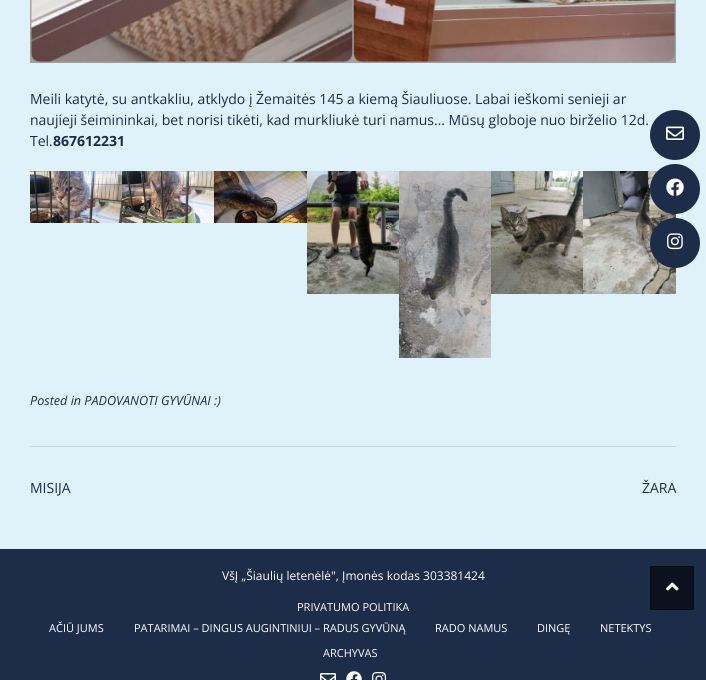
import math
import cairo

surface = cairo.ImageSurface(cairo.FORMAT_RGB24, 706, 680)
ctx = cairo.Context(surface)
options = cairo.FontOptions()
options.set_hint_metrics(cairo.HINT_METRICS_OFF)
options.set_hint_style(cairo.HINT_STYLE_NONE)
ctx.set_font_options(options)
ctx.set_miter_limit(4)


def set_color(code):
    ctx.set_source_rgb(*(v / 255 for v in bytes.fromhex(code[-6:])))


def draw_text(x, y, s, family, size, color, bold=False, italic=False):
    ctx.select_font_face(family, cairo.FONT_SLANT_ITALIC if italic else cairo.FONT_SLANT_NORMAL, cairo.FONT_WEIGHT_BOLD if bold else cairo.FONT_WEIGHT_NORMAL)
    ctx.set_font_size(size)
    set_color(color)
    ctx.move_to(x, y)
    ctx.show_text(s)


def fill_rect(x, y, w, h, color):
    set_color(color)
    ctx.rectangle(x, y, w, h)
    ctx.fill()


def rounded_rect(x, y, w, h, r):
    ctx.new_sub_path()
    for i, (u, v) in enumerate([(x + w - r, y + h - r), (x + r, y + h - r), (x + r, y + r), (x + w - r, y + r)]):
        ctx.arc(u, v, r, i * math.pi / 2, (i + 1) * math.pi / 2)
    ctx.close_path()


def draw_image(path, x, y, w, h):
    ctx.save()
    ctx.set_source_surface(cairo.ImageSurface.create_from_png(path), x, y)
    ctx.rectangle(x, y, w, h)
    ctx.fill()
    ctx.restore()


set_color("#e0f2f9")
ctx.paint()
fill_rect(30, 446, 646, 1, "#cadae0")
draw_image("assets/img1.png", 30, 0, 646, 63)
draw_text(30, 104, "Meili katytė, su antkakliu, atklydo į Žemaitės 145 a kiemą Šiauliuose. Labai ieškomi senieji ar", "Open Sans", 14, "#1d2c49")
draw_text(30, 125, "naujieji šeimininkai, bet norisi tikėti, kad murkliukė turi namus… Mūsų globoje nuo birželio 12d.", "Open Sans", 14, "#1d2c49")
draw_text(30, 146, "Tel.", "Open Sans", 14, "#1d2c49")
draw_text(53, 146, "867612231", "Open Sans", 14, "#1d2c49", bold=True)
draw_image("assets/img2.png", 30, 171, 92, 52)
draw_image("assets/img3.png", 122, 171, 92, 52)
draw_image("assets/img4.png", 214, 171, 93, 52)
draw_image("assets/img5.png", 307, 171, 92, 123)
draw_image("assets/img6.png", 399, 171, 92, 187)
draw_image("assets/img7.png", 491, 171, 92, 123)
draw_image("assets/img8.png", 583, 171, 93, 123)
draw_text(30, 405, "Posted in PADOVANOTI GYVŪNAI :)", "Open Sans", 12.6, "#1d2c49", italic=True)
draw_text(30, 493, "MISIJA", "Open Sans", 14, "#1d2c49")
draw_text(642, 493, "ŽARA", "Open Sans", 14, "#1d2c49")
fill_rect(0, 549, 706, 131, "#1d2c49")
draw_text(222, 580, "VšĮ „Šiaulių letenėlė\", Įmonės kodas 303381424", "Open Sans", 12, "#ffffff")
draw_text(297, 611, "PRIVATUMO POLITIKA", "Open Sans", 11, "#ffffff")
draw_text(49, 632, "AČIŪ JUMS", "Open Sans", 11, "#ffffff")
draw_text(134, 632, "PATARIMAI – DINGUS AUGINTINIUI – RADUS GYVŪNĄ", "Open Sans", 11, "#ffffff")
draw_text(435, 632, "RADO NAMUS", "Open Sans", 11, "#ffffff")
draw_text(537, 632, "DINGĘ", "Open Sans", 11, "#ffffff")
draw_text(600, 632, "NETEKTYS", "Open Sans", 11, "#ffffff")
draw_text(323, 657, "ARCHYVAS", "Open Sans", 11, "#ffffff")
draw_image("assets/img9.png", 320, 673, 16, 7)
draw_image("assets/img10.png", 346, 671, 16, 9)
draw_image("assets/img11.png", 372, 672, 15, 8)
set_color("#1d2c49")
ctx.arc(675, 135, 25, 0, 2 * math.pi)
ctx.fill()
draw_image("assets/img12.png", 666, 126, 18, 14)
ctx.arc(675, 189, 25, 0, 2 * math.pi)
ctx.fill()
draw_image("assets/img13.png", 666, 178, 18, 18)
ctx.arc(675, 243, 25, 0, 2 * math.pi)
ctx.fill()
draw_image("assets/img14.png", 667, 233, 16, 17)
set_color("#0c121d")
rounded_rect(650, 566, 44, 44, 2)
ctx.fill()
rounded_rect(650.5, 566.5, 43, 43, 1.5)
ctx.set_source_rgba(0, 0, 0, 0.4)
ctx.set_line_width(1)
ctx.stroke()
draw_image("assets/img15.png", 666, 582, 13, 9)
surface.write_to_png("output.png")
